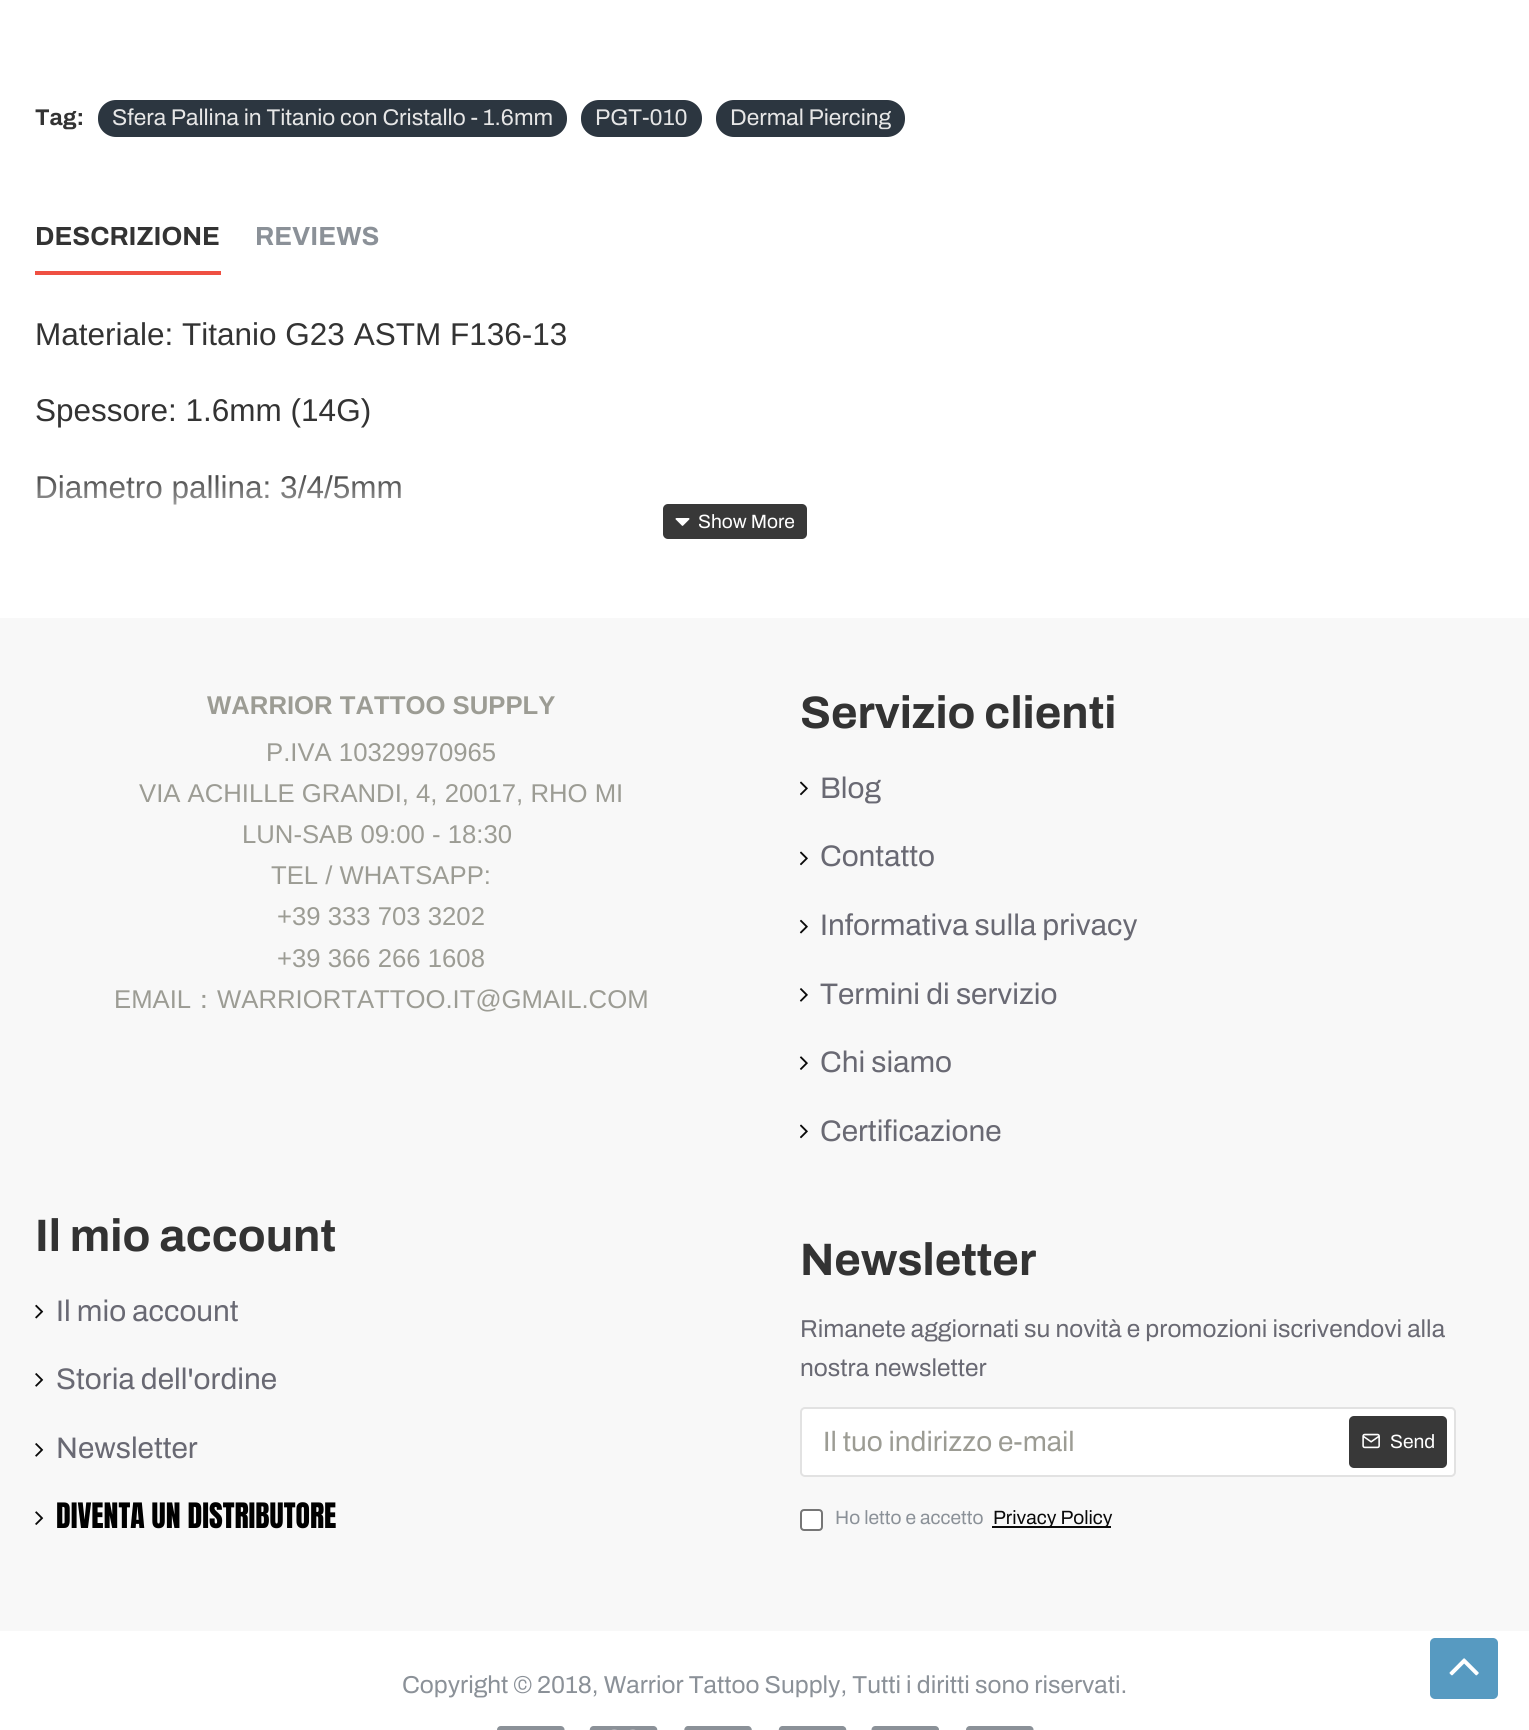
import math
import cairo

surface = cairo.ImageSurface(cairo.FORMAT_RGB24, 1529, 1730)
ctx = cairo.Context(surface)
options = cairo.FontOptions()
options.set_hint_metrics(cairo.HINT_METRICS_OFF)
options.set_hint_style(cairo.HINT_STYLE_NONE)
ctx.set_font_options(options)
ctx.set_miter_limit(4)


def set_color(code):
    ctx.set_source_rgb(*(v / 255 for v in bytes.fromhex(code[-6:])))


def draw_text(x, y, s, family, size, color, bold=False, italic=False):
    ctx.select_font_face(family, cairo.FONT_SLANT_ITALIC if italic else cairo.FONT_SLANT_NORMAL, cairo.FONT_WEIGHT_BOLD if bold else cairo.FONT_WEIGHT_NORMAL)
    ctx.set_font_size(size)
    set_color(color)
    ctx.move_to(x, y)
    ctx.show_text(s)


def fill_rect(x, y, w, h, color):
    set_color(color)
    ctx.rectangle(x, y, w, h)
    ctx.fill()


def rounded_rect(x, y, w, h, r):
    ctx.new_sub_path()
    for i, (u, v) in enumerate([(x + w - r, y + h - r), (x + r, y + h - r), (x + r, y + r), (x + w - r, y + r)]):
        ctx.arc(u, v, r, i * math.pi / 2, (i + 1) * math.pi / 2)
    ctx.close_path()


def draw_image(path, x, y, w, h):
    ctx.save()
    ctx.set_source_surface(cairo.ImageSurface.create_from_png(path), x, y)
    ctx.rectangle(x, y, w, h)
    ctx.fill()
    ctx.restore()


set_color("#ffffff")
ctx.paint()
draw_text(35, 125, "Tag:", "Archivo", 22.75, "#333333", bold=True)
set_color("#2c3640")
rounded_rect(98, 100, 469, 37, 18)
ctx.fill()
draw_text(112, 125, "Sfera Pallina in Titanio con Cristallo - 1.6mm", "Archivo", 22.75, "#e6e6e6")
set_color("#2c3640")
rounded_rect(581, 100, 121, 37, 18)
ctx.fill()
draw_text(595, 125, "PGT-010", "Archivo", 22.75, "#e6e6e6")
set_color("#2c3640")
rounded_rect(716, 100, 189, 37, 18)
ctx.fill()
draw_text(730, 125, "Dermal Piercing", "Archivo", 22.75, "#e6e6e6")
fill_rect(35, 271, 186, 4, "#ef5042")
draw_text(35, 245, "DESCRIZIONE", "Archivo", 26.25, "#333333", bold=True)
draw_text(255, 245, "REVIEWS", "Archivo", 26.25, "#8b9198", bold=True)
draw_text(35, 345, "Materiale: Titanio G23 ASTM F136-13", "Liberation Sans", 31.5, "#333333")
draw_text(35, 421, "Spessore: 1.6mm (14G)", "Liberation Sans", 31.5, "#333333")
draw_text(35, 498, "Diametro pallina: 3/4/5mm", "Liberation Sans", 31.5, "#333333")
gradient = cairo.LinearGradient(735, 469, 735, 539)
gradient.add_color_stop_rgba(0, 1, 1, 1, 0)
gradient.add_color_stop_rgba(1, 1, 1, 1, 1)
ctx.set_source(gradient)
ctx.rectangle(37, 475, 364, 30)
ctx.fill()
set_color("#383838")
rounded_rect(663, 504, 144, 35, 5)
ctx.fill()
draw_image("assets/img1.png", 675, 518, 15, 8)
draw_text(698, 528, "Show More", "Archivo", 19.25, "#ffffff")
fill_rect(0, 618, 1529, 1013, "#f8f8f8")
draw_text(207, 714, "WARRIOR TATTOO SUPPLY", "Liberation Sans", 25.7, "#9c9c94", bold=True)
draw_text(266, 761, "P.IVA 10329970965", "Liberation Sans", 25.7, "#9c9c94")
draw_text(139, 802, "VIA ACHILLE GRANDI, 4, 20017, RHO MI", "Liberation Sans", 25.7, "#9c9c94")
draw_text(242, 843, "LUN-SAB 09:00 - 18:30", "Liberation Sans", 25.7, "#9c9c94")
draw_text(271, 884, "TEL / WHATSAPP:", "Liberation Sans", 25.7, "#9c9c94")
draw_text(277, 925, "+39 333 703 3202", "Liberation Sans", 25.7, "#9c9c94")
draw_text(277, 967, "+39 366 266 1608", "Liberation Sans", 25.7, "#9c9c94")
draw_text(114, 1008, "EMAIL", "Liberation Sans", 25.7, "#9c9c94")
draw_text(191, 1008, "：", "WenQuanYi Zen Hei Medium", 25.7, "#9c9c94")
draw_text(217, 1008, "WARRIORTATTOO.IT@GMAIL.COM", "Liberation Sans", 25.7, "#9c9c94")
draw_text(800, 728, "Servizio clienti", "Archivo", 45.5, "#333333", bold=True)
draw_image("assets/img2.png", 800, 781, 8, 15)
draw_text(820, 798, "Blog", "Archivo", 29.75, "#696973")
draw_image("assets/img2.png", 800, 851, 8, 15)
draw_text(820, 866, "Contatto", "Archivo", 29.75, "#696973")
draw_image("assets/img3.png", 799, 919, 9, 15)
draw_text(820, 935, "Informativa sulla privacy", "Archivo", 29.75, "#696973")
draw_image("assets/img4.png", 799, 988, 9, 14)
draw_text(820, 1004, "Termini di servizio", "Archivo", 29.75, "#696973")
draw_image("assets/img5.png", 799, 1056, 9, 14)
draw_text(820, 1072, "Chi siamo", "Archivo", 29.75, "#696973")
draw_image("assets/img2.png", 800, 1124, 8, 15)
draw_text(820, 1141, "Certificazione", "Archivo", 29.75, "#696973")
draw_text(35, 1251, "Il mio account", "Archivo", 45.5, "#333333", bold=True)
draw_image("assets/img6.png", 35, 1304, 9, 15)
draw_text(56, 1321, "Il mio account", "Archivo", 29.75, "#696973")
draw_image("assets/img7.png", 35, 1373, 9, 14)
draw_text(56, 1389, "Storia dell'ordine", "Archivo", 29.75, "#696973")
draw_image("assets/img7.png", 35, 1443, 9, 14)
draw_text(56, 1458, "Newsletter", "Archivo", 29.75, "#696973")
draw_image("assets/img8.png", 35, 1511, 9, 14)
draw_text(56, 1528, "DIVENTA UN DISTRIBUTORE", "Anton", 29.75, "#000000")
draw_text(800, 1275, "Newsletter", "Archivo", 45.5, "#333333", bold=True)
draw_text(800, 1337, "Rimanete aggiornati su novità e promozioni iscrivendovi alla", "Archivo", 24.5, "#696973")
draw_text(800, 1376, "nostra newsletter", "Archivo", 24.5, "#696973")
set_color("#ffffff")
rounded_rect(801, 1408, 654, 68, 4)
ctx.fill_preserve()
set_color("#e2e2e2")
ctx.stroke()
draw_text(823, 1451, "Il tuo indirizzo e-mail", "Archivo", 28, "#9c9c94")
set_color("#383838")
rounded_rect(1349, 1416, 98, 52, 5)
ctx.fill()
draw_image("assets/img9.png", 1362, 1433, 18, 16)
draw_text(1390, 1448, "Send", "Archivo", 19.25, "#ffffff")
rounded_rect(801, 1510, 21, 20, 3)
ctx.fill_preserve()
set_color("#767676")
ctx.stroke()
draw_text(835, 1524, "Ho letto e accetto", "Archivo", 19.25, "#8b9198")
fill_rect(992, 1526, 119, 2, "#0a0a0a")
draw_text(993, 1524, "Privacy Policy", "Archivo", 19.25, "#0a0a0a")
draw_text(402, 1693, "Copyright © 2018, Warrior Tattoo Supply, Tutti i diritti sono riservati.", "Archivo", 24.5, "#8b9198")
draw_image("assets/img10.png", 497, 1726, 68, 4)
draw_image("assets/img11.png", 589, 1726, 69, 4)
draw_image("assets/img12.png", 684, 1726, 68, 4)
draw_image("assets/img13.png", 778, 1726, 69, 4)
draw_image("assets/img14.png", 871, 1726, 68, 4)
draw_image("assets/img10.png", 966, 1726, 68, 4)
set_color("#579ac1")
rounded_rect(1430, 1638, 68, 61, 5)
ctx.fill()
draw_image("assets/img15.png", 1449, 1658, 30, 18)
surface.write_to_png("output.png")
